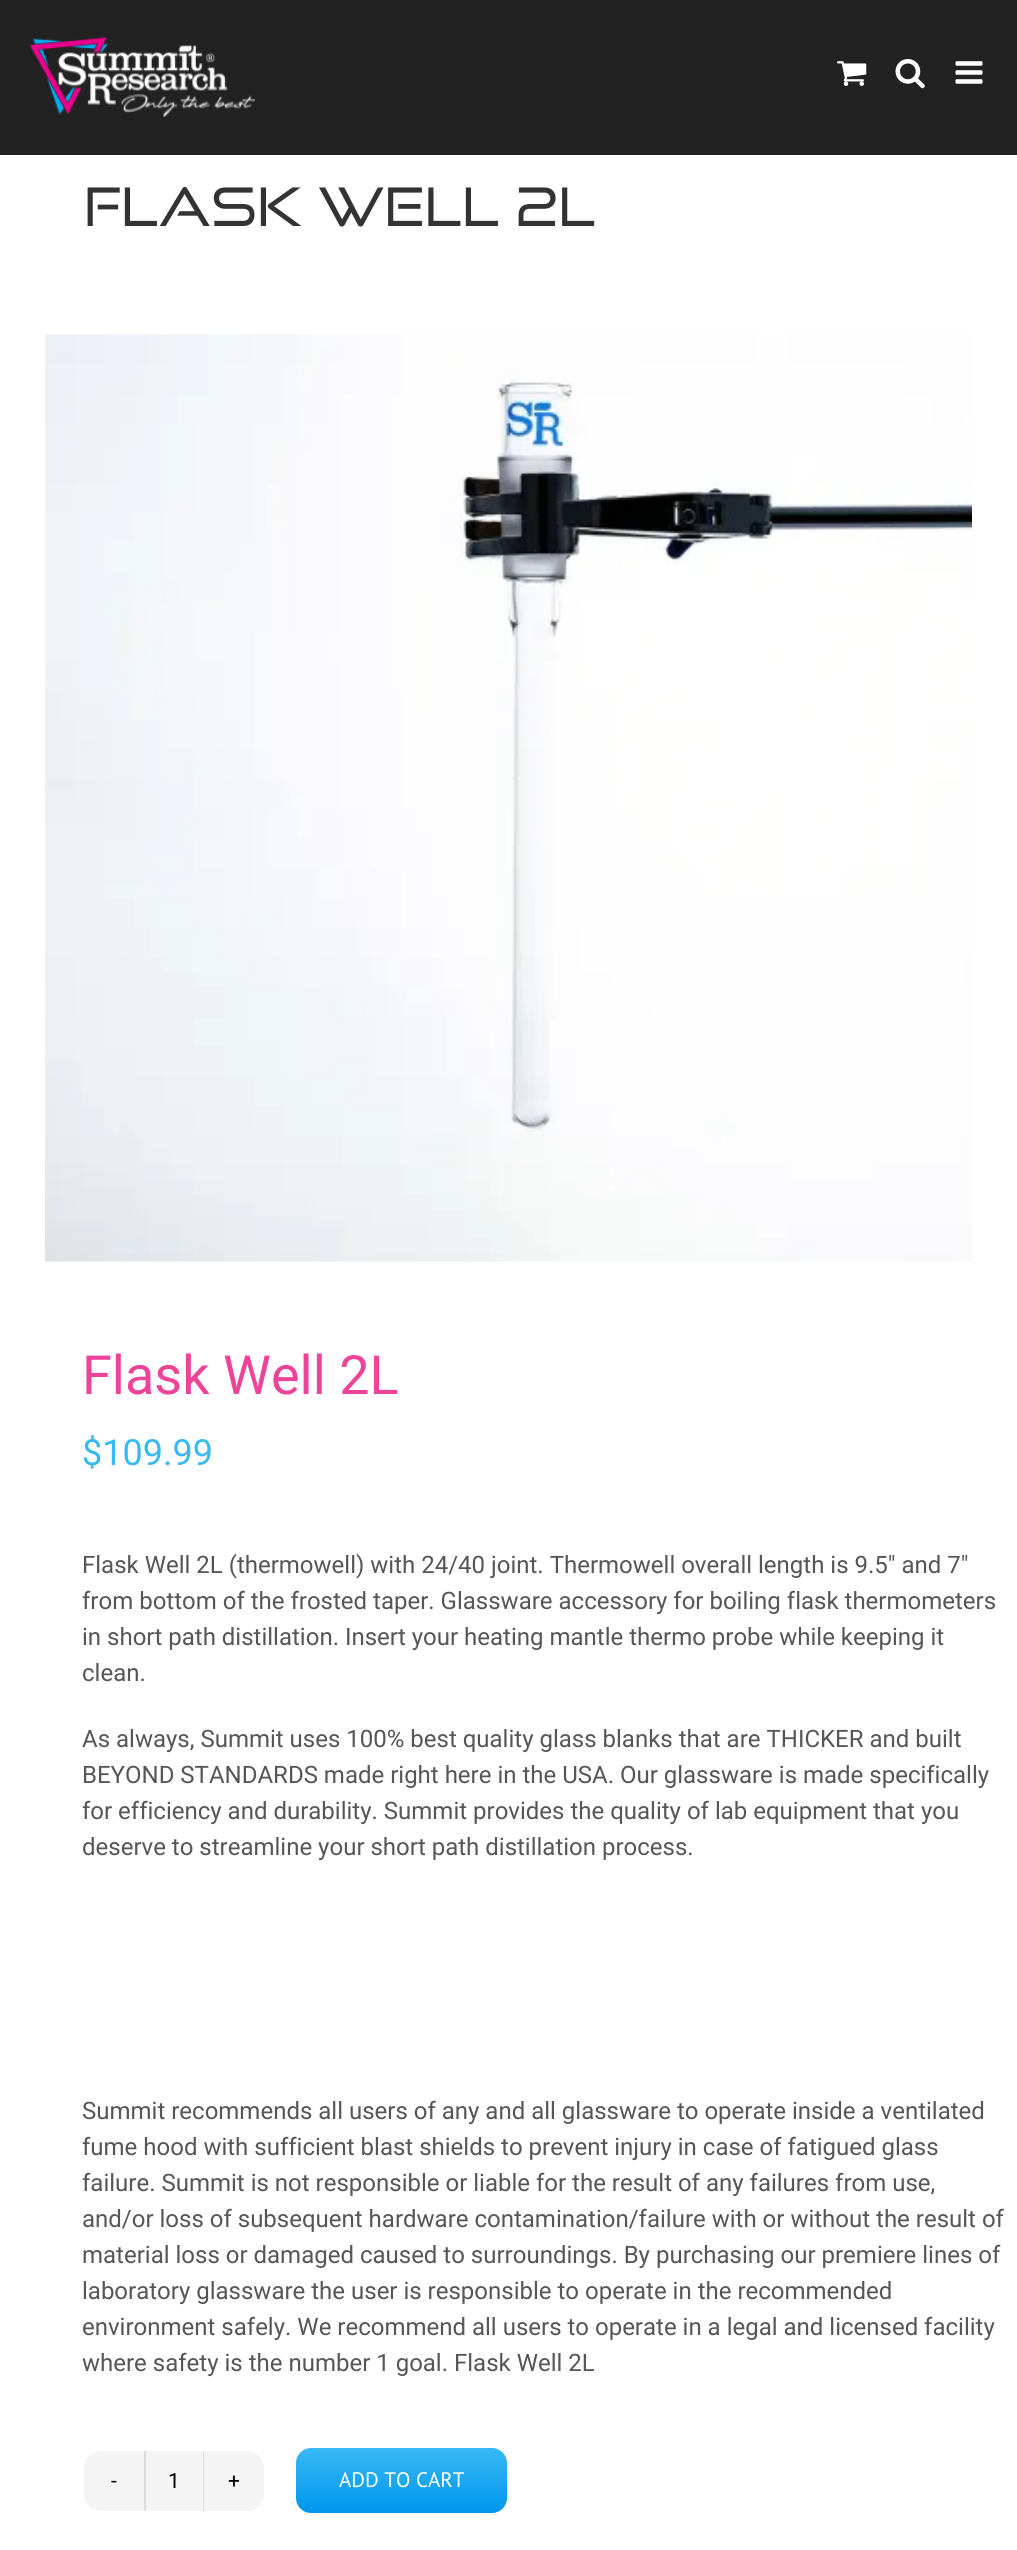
import math
import cairo

surface = cairo.ImageSurface(cairo.FORMAT_RGB24, 1017, 2550)
ctx = cairo.Context(surface)
options = cairo.FontOptions()
options.set_hint_metrics(cairo.HINT_METRICS_OFF)
options.set_hint_style(cairo.HINT_STYLE_NONE)
ctx.set_font_options(options)
ctx.set_miter_limit(4)


def set_color(code):
    ctx.set_source_rgb(*(v / 255 for v in bytes.fromhex(code[-6:])))


def draw_text(x, y, s, family, size, color, bold=False, italic=False):
    ctx.select_font_face(family, cairo.FONT_SLANT_ITALIC if italic else cairo.FONT_SLANT_NORMAL, cairo.FONT_WEIGHT_BOLD if bold else cairo.FONT_WEIGHT_NORMAL)
    ctx.set_font_size(size)
    set_color(color)
    ctx.move_to(x, y)
    ctx.show_text(s)


def fill_rect(x, y, w, h, color):
    set_color(color)
    ctx.rectangle(x, y, w, h)
    ctx.fill()


def rounded_rect(x, y, w, h, r):
    ctx.new_sub_path()
    for i, (u, v) in enumerate([(x + w - r, y + h - r), (x + r, y + h - r), (x + r, y + r), (x + w - r, y + r)]):
        ctx.arc(u, v, r, i * math.pi / 2, (i + 1) * math.pi / 2)
    ctx.close_path()


def draw_image(path, x, y, w, h):
    ctx.save()
    ctx.set_source_surface(cairo.ImageSurface.create_from_png(path), x, y)
    ctx.rectangle(x, y, w, h)
    ctx.fill()
    ctx.restore()


set_color("#ffffff")
ctx.paint()
fill_rect(0, 0, 1017, 155, "#222222")
draw_image("assets/img1.png", 30, 37, 225, 80)
draw_image("assets/img2.png", 837, 61, 30, 25)
draw_image("assets/img3.png", 895, 59, 30, 30)
draw_image("assets/img4.png", 955, 61, 28, 23)
draw_text(84, 226, "Flask Well 2L", "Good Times", 53, "#333333")
draw_image("assets/img5.png", 45, 334, 927, 928)
draw_text(82, 1394, "Flask Well 2L", "Roboto", 54, "#ee4399")
draw_text(82, 1465, "$109.99", "Roboto", 36, "#38b9f4")
draw_text(82, 1573, "Flask Well 2L (thermowell) with 24/40 joint. Thermowell overall length is 9.5″ and 7″", "Roboto", 24, "#565656")
draw_text(82, 1609, "from bottom of the frosted taper. Glassware accessory for boiling flask thermometers", "Roboto", 24, "#565656")
draw_text(82, 1645, "in short path distillation. Insert your heating mantle thermo probe while keeping it", "Roboto", 24, "#565656")
draw_text(82, 1681, "clean.", "Roboto", 24, "#565656")
draw_text(82, 1747, "As always, Summit uses 100% best quality glass blanks that are THICKER and built", "Roboto", 24, "#565656")
draw_text(82, 1783, "BEYOND STANDARDS made right here in the USA. Our glassware is made specifically", "Roboto", 24, "#565656")
draw_text(82, 1819, "for efficiency and durability. Summit provides the quality of lab equipment that you", "Roboto", 24, "#565656")
draw_text(82, 1855, "deserve to streamline your short path distillation process.", "Roboto", 24, "#565656")
draw_text(82, 2119, "Summit recommends all users of any and all glassware to operate inside a ventilated", "Roboto", 24, "#565656")
draw_text(82, 2155, "fume hood with sufficient blast shields to prevent injury in case of fatigued glass", "Roboto", 24, "#565656")
draw_text(82, 2191, "failure. Summit is not responsible or liable for the result of any failures from use,", "Roboto", 24, "#565656")
draw_text(82, 2227, "and/or loss of subsequent hardware contamination/failure with or without the result of", "Roboto", 24, "#565656")
draw_text(82, 2263, "material loss or damaged caused to surroundings. By purchasing our premiere lines of", "Roboto", 24, "#565656")
draw_text(82, 2299, "laboratory glassware the user is responsible to operate in the recommended", "Roboto", 24, "#565656")
draw_text(82, 2335, "environment safely. We recommend all users to operate in a legal and licensed facility", "Roboto", 24, "#565656")
draw_text(82, 2371, "where safety is the number 1 goal. Flask Well 2L", "Roboto", 24, "#565656")
set_color("#f4f4f4")
ctx.new_path()
ctx.move_to(101, 2451)
ctx.line_to(144, 2451)
ctx.line_to(144, 2511)
ctx.line_to(101, 2511)
ctx.curve_to(91.5, 2511, 84, 2503.5, 84, 2494)
ctx.line_to(84, 2468)
ctx.curve_to(84, 2458.5, 91.5, 2451, 101, 2451)
ctx.close_path()
ctx.fill()
draw_text(111, 2488, "-", "Roboto", 21, "#000000")
fill_rect(146, 2451, 57, 60, "#f4f4f4")
fill_rect(203, 2451, 1, 60, "#dbdbdb")
fill_rect(144, 2451, 2, 60, "#dbdbdb")
draw_text(168, 2488, "1", "Roboto", 21, "#000000")
set_color("#f4f4f4")
ctx.new_path()
ctx.move_to(204, 2451)
ctx.line_to(247, 2451)
ctx.curve_to(256.5, 2451, 264, 2458.5, 264, 2468)
ctx.line_to(264, 2494)
ctx.curve_to(264, 2503.5, 256.5, 2511, 247, 2511)
ctx.line_to(204, 2511)
ctx.close_path()
ctx.fill()
draw_text(228, 2488, "+", "Roboto", 21, "#000000")
gradient = cairo.LinearGradient(401, 2448, 401, 2513)
gradient.add_color_stop_rgba(0, 0.22, 0.725, 0.957, 1)
gradient.add_color_stop_rgba(1, 0, 0.588, 0.929, 1)
ctx.set_source(gradient)
rounded_rect(296, 2448, 211, 65, 15)
ctx.fill()
draw_text(339, 2487, "ADD TO CART", "PT Sans", 21, "#ffffff")
surface.write_to_png("output.png")
